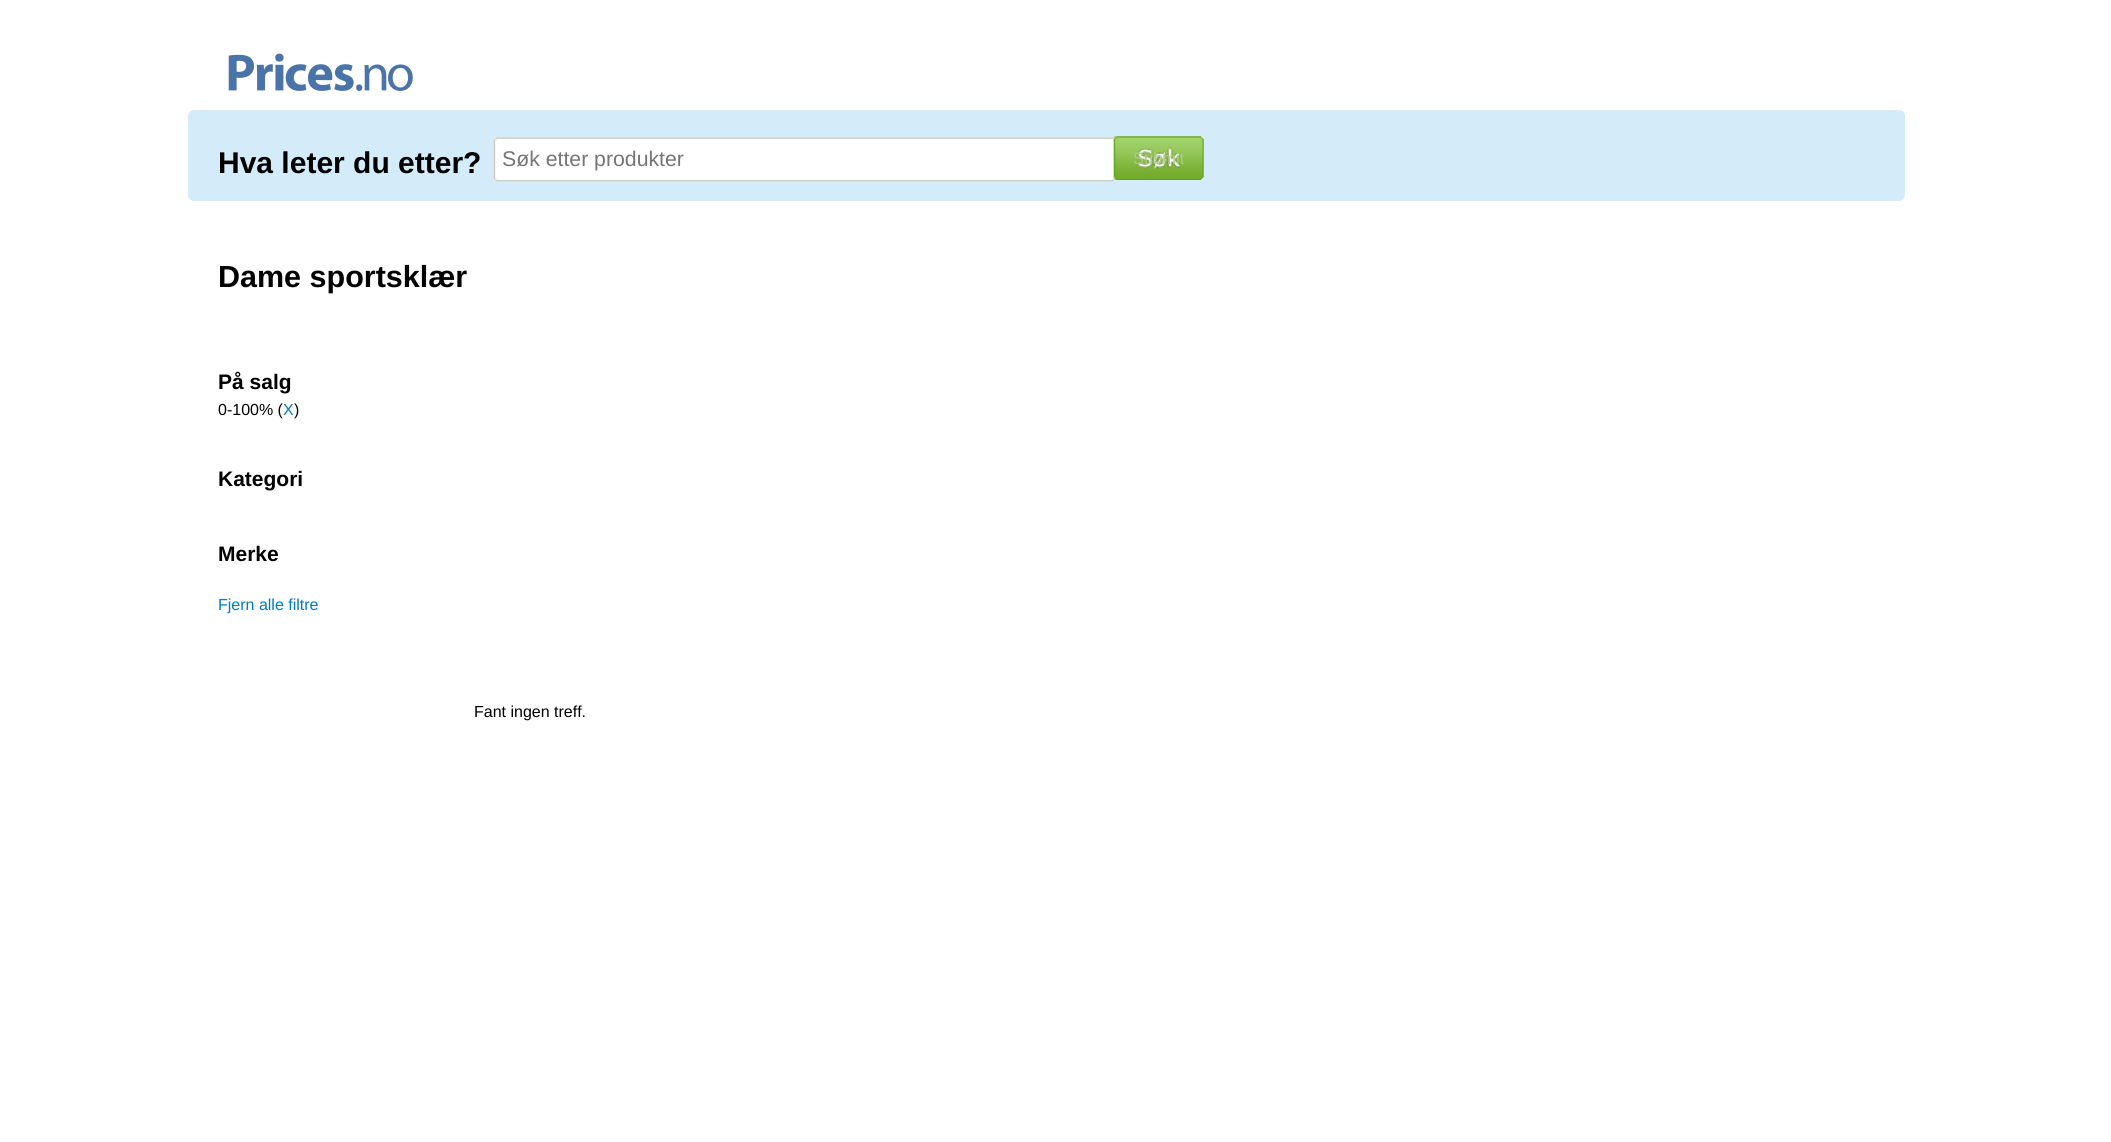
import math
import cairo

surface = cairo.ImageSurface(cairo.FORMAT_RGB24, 2111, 1142)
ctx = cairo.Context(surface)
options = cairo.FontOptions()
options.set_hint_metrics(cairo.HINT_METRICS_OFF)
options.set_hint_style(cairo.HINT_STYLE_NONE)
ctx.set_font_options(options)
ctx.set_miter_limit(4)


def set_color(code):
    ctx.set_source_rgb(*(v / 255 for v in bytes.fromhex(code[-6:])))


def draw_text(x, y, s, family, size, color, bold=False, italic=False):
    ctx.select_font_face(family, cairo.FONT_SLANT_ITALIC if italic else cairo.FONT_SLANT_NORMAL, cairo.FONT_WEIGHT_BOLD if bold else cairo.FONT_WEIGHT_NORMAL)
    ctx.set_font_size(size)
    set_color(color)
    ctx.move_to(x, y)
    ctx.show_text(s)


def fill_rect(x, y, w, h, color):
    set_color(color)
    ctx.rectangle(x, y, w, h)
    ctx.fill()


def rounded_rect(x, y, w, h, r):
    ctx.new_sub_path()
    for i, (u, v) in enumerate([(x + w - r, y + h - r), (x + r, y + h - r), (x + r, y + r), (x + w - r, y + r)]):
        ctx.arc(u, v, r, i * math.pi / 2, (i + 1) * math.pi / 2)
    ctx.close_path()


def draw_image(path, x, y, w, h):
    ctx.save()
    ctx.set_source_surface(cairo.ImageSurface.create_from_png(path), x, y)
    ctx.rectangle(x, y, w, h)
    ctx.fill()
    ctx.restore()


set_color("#ffffff")
ctx.paint()
draw_image("assets/img1.png", 228, 53, 185, 38)
set_color("#d4ebfa")
rounded_rect(188, 110, 1717, 91, 6)
ctx.fill()
draw_text(218, 173, "Hva leter du etter?", "Liberation Sans", 30, "#000000", bold=True)
draw_image("assets/img2.png", 493, 137, 621, 45)
draw_text(502, 166, "Søk etter produkter", "Liberation Sans", 21.25, "#757575")
fill_rect(1114, 136, 90, 44, "#efefef")
draw_image("assets/img3.png", 1113, 136, 91, 44)
draw_text(1133, 164, "Submit", "Liberation Sans", 16.5, "#abca85")
draw_text(218, 287, "Dame sportsklær", "Liberation Sans", 30.5, "#000000", bold=True)
draw_text(218, 389, "På salg", "Liberation Sans", 21, "#000000", bold=True)
draw_text(218, 415, "0-100% (", "Liberation Sans", 16, "#000000")
draw_text(283, 415, "X", "Liberation Sans", 16, "#027ac6")
draw_text(294, 415, ")", "Liberation Sans", 16, "#000000")
draw_text(218, 486, "Kategori", "Liberation Sans", 21, "#000000", bold=True)
draw_text(218, 561, "Merke", "Liberation Sans", 21, "#000000", bold=True)
draw_text(218, 610, "Fjern alle filtre", "Liberation Sans", 16, "#027ac6")
draw_text(474, 717, "Fant ingen treff.", "Liberation Sans", 16, "#000000")
surface.write_to_png("output.png")
